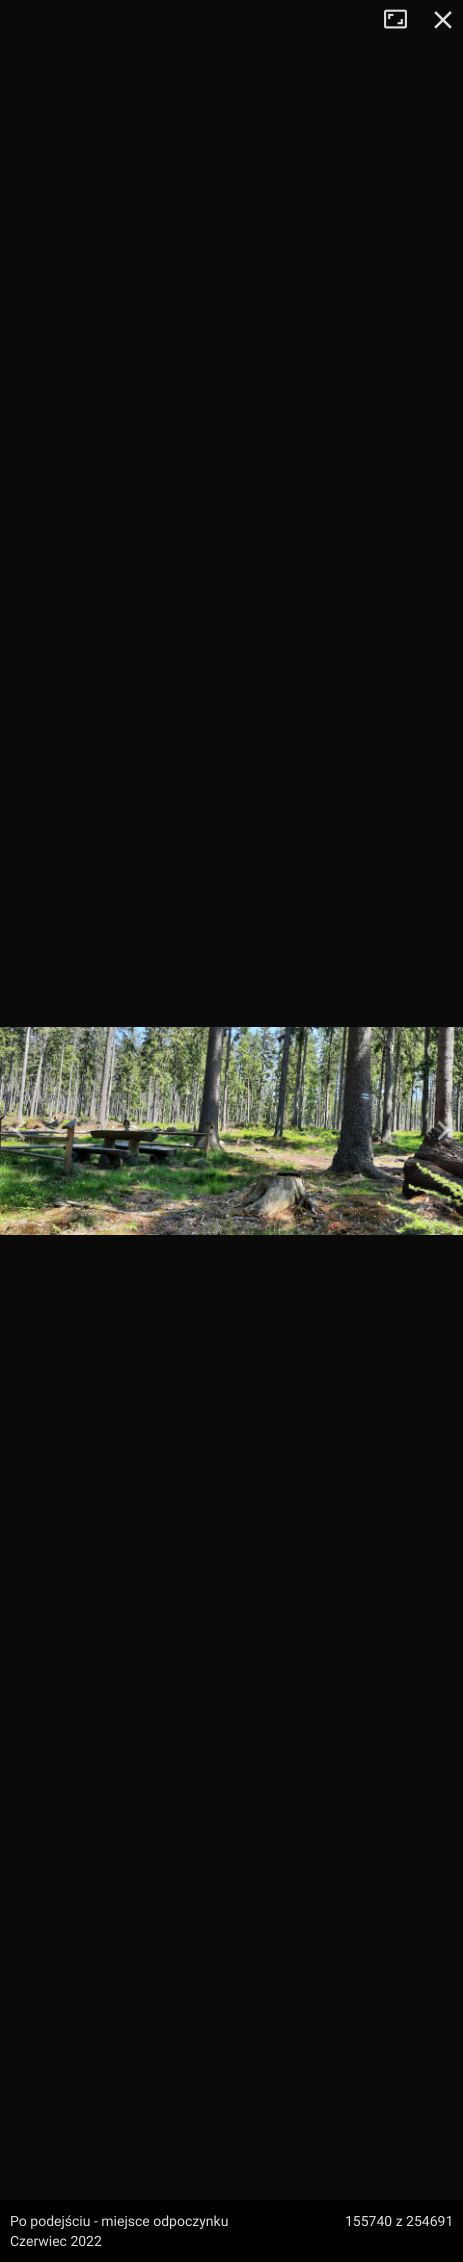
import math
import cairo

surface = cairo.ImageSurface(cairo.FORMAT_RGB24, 463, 2262)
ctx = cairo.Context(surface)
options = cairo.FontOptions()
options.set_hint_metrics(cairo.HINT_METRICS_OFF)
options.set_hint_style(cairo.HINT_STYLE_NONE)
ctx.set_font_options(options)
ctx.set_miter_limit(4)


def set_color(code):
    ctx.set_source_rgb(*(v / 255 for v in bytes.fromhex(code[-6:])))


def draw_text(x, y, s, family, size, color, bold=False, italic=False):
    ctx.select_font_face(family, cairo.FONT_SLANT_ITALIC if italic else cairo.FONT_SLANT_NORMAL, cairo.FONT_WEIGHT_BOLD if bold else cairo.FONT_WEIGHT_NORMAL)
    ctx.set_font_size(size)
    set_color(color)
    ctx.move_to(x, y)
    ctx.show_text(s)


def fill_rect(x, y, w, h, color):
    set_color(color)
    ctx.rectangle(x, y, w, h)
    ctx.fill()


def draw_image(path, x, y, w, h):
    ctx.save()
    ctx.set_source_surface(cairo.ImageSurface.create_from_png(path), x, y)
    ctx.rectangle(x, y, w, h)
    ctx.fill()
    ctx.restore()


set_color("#0a0a0a")
ctx.paint()
draw_image("assets/img1.png", 384, 9, 23, 20)
draw_image("assets/img2.png", 434, 11, 18, 18)
draw_image("assets/img3.png", 0, 1027, 463, 208)
ctx.set_source_rgba(1, 1, 1, 0.5)
ctx.new_path()
ctx.move_to(25.5, 1123)
ctx.line_to(23.5, 1120.5)
ctx.line_to(13.5, 1130.5)
ctx.line_to(23.5, 1140.5)
ctx.line_to(25.5, 1138)
ctx.line_to(18, 1130.5)
ctx.close_path()
ctx.fill()
ctx.new_path()
ctx.move_to(439.5, 1120.5)
ctx.line_to(437.5, 1123)
ctx.line_to(445, 1130.5)
ctx.line_to(437.5, 1138)
ctx.line_to(439.5, 1140.5)
ctx.line_to(449.5, 1130.5)
ctx.close_path()
ctx.fill()
fill_rect(0, 2200, 463, 62, "#000000")
draw_text(10, 2226, "Po podejściu - miejsce odpoczynku", "Roboto", 14, "#dedede")
draw_text(10, 2246, "Czerwiec 2022", "Roboto", 14, "#dedede")
draw_text(345, 2226, "155740 z 254691", "Roboto", 14, "#dedede")
surface.write_to_png("output.png")
